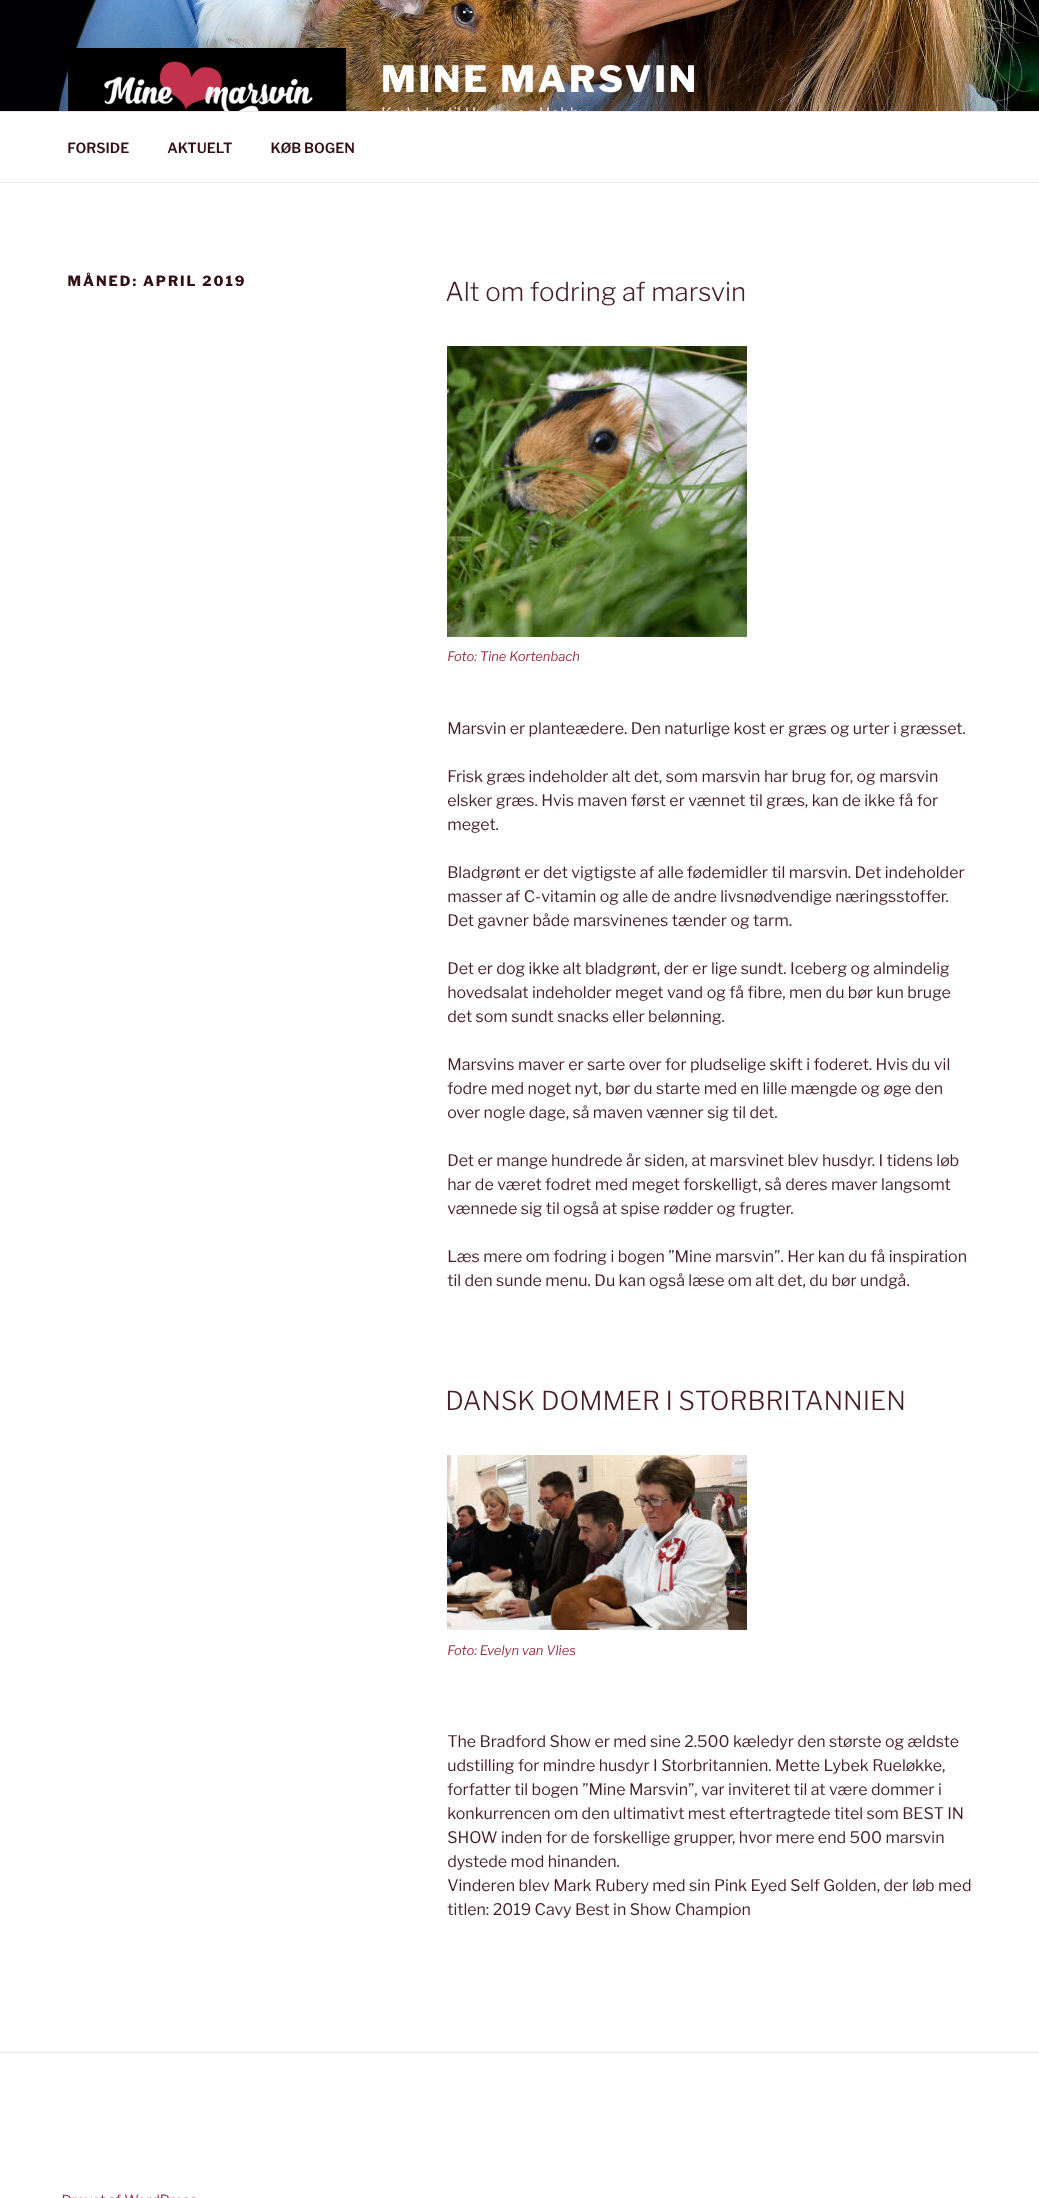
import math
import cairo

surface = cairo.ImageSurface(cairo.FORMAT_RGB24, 1039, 2198)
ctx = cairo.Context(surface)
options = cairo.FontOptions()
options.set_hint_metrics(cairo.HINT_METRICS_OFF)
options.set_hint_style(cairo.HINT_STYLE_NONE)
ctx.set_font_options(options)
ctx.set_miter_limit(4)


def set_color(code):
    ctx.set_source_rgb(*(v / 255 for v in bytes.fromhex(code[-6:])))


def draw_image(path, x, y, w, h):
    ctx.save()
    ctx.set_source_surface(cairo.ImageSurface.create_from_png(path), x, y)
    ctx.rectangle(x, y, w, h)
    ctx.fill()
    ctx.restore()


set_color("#ffffff")
ctx.paint()
draw_image("assets/img1.png", 0, 0, 1039, 2198)
surface.write_to_png("output.png")
